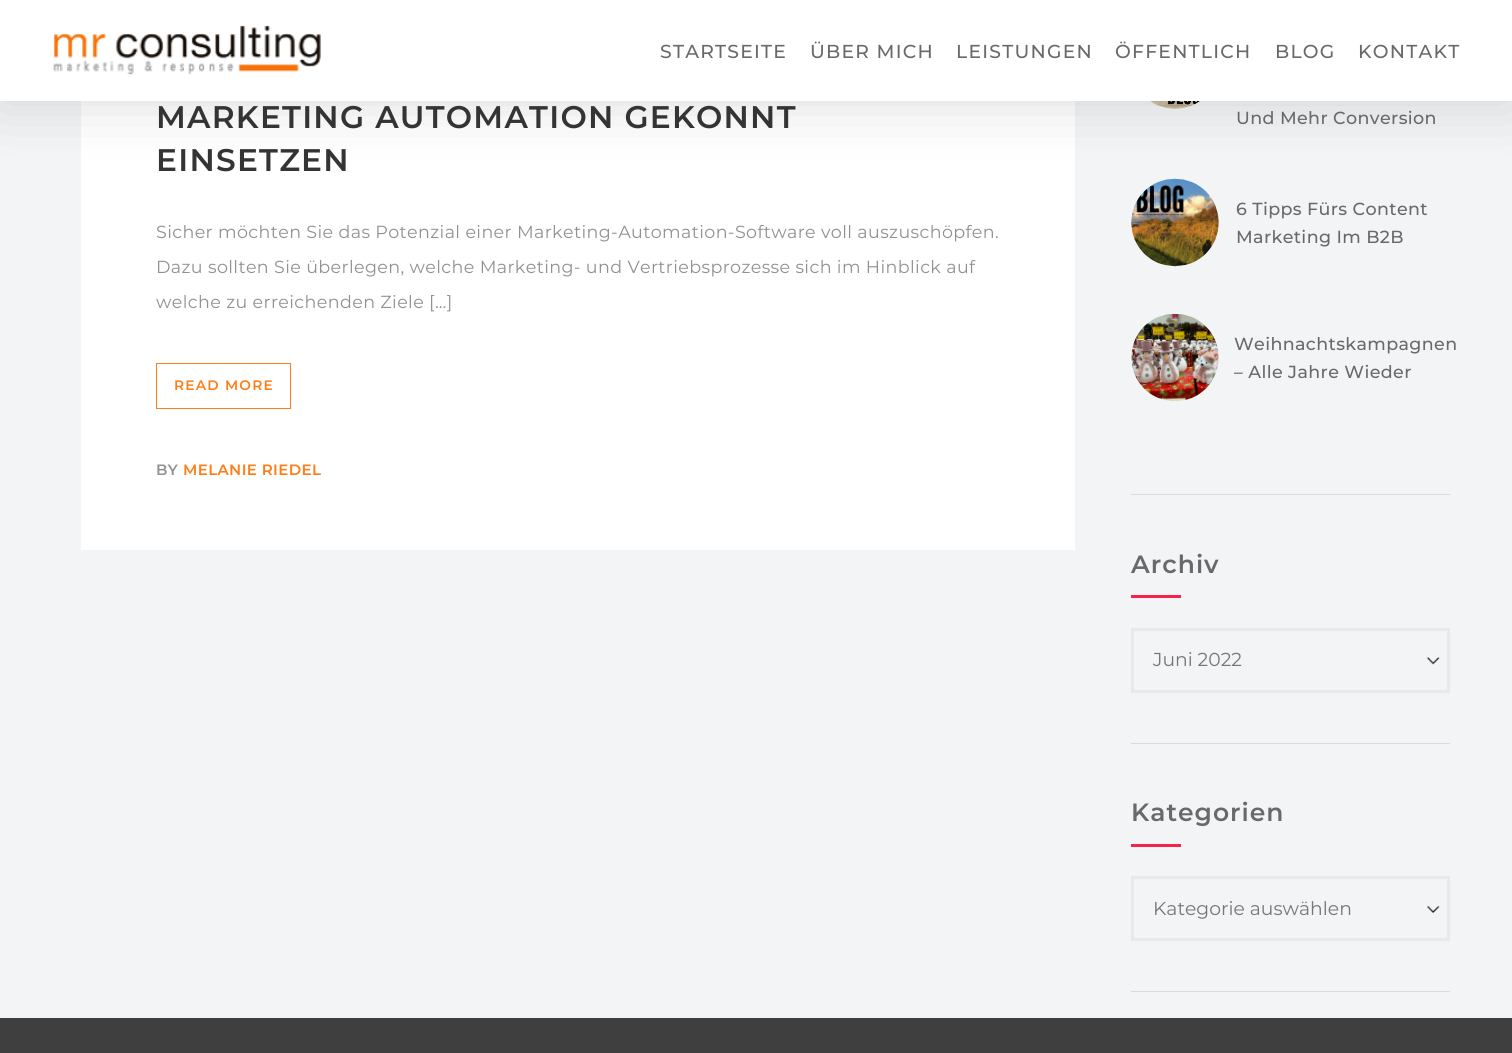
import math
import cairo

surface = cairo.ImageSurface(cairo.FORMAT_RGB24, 1512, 1053)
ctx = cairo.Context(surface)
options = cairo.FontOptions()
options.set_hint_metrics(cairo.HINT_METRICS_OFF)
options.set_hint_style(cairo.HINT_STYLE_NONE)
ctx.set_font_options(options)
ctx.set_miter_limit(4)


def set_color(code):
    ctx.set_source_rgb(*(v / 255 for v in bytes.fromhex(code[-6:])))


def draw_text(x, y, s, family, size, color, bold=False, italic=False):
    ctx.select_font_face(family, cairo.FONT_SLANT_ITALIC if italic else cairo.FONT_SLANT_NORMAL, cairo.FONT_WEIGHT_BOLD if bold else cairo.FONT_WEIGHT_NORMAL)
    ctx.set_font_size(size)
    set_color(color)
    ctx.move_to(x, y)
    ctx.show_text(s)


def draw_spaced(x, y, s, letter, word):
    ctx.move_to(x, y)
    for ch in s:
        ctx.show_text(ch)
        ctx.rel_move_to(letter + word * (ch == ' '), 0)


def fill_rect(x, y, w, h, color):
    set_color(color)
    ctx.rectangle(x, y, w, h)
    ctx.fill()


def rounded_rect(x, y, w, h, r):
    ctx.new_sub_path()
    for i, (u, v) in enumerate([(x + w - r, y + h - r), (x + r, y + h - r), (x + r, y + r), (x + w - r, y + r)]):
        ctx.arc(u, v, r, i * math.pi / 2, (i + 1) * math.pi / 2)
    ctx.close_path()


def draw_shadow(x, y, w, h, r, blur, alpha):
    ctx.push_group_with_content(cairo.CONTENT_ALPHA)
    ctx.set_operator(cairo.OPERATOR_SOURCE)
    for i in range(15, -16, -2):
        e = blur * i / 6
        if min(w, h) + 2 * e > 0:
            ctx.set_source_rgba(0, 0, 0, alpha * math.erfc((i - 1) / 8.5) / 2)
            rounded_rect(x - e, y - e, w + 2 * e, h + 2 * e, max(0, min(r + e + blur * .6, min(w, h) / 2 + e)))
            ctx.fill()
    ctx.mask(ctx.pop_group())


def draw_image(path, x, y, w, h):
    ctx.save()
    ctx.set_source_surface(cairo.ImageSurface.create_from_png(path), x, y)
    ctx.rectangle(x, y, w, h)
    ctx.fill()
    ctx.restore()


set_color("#f3f4f6")
ctx.paint()
fill_rect(81, 101, 994, 449, "#ffffff")
draw_image("assets/img2.png", 1150, 101, 50, 8)
draw_image("assets/img3.png", 1131, 178, 88, 89)
set_color("#000000")
draw_shadow(0, 0, 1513, 101, 0, 31, 0.15)
fill_rect(0, 0, 1512, 101, "#ffffff")
draw_image("assets/img1.png", 53, 25, 268, 50)
ctx.select_font_face("Montserrat Medium")
ctx.set_font_size(18.75)
set_color("#696969")
draw_spaced(660, 58, "STARTSEITE", 1.25, 0)
draw_spaced(810, 58, "ÜBER MICH", 1.25, 0)
draw_spaced(956, 58, "LEISTUNGEN", 1.25, 0)
draw_spaced(1115, 58, "ÖFFENTLICH", 1.25, 0)
draw_spaced(1275, 58, "BLOG", 1.25, 0)
draw_spaced(1358, 58, "KONTAKT", 1.25, 0)
ctx.select_font_face("Montserrat SemiBold")
ctx.set_font_size(31.25)
set_color("#343434")
draw_spaced(156, 128, "MARKETING AUTOMATION GEKONNT", 1.25, 0)
draw_spaced(156, 171, "EINSETZEN", 1.25, 0)
ctx.select_font_face("Montserrat")
ctx.set_font_size(17.5)
set_color("#919191")
draw_spaced(156, 238, "Sicher möchten Sie das Potenzial einer Marketing-Automation-Software voll auszuschöpfen.", 0.38, 0)
draw_spaced(156, 273, "Dazu sollten Sie überlegen, welche Marketing- und Vertriebsprozesse sich im Hinblick auf", 0.38, 0)
draw_spaced(156, 308, "welche zu erreichenden Ziele […]", 0.38, 0)
ctx.rectangle(156.5, 363.5, 134, 45)
set_color("#fe7d16")
ctx.set_line_width(1)
ctx.stroke()
ctx.select_font_face("Montserrat SemiBold")
ctx.set_font_size(13.75)
draw_spaced(174, 390, "READ MORE", 1.25, 0)
ctx.set_font_size(15)
set_color("#919191")
draw_spaced(156, 475, "BY", 0.38, 0)
set_color("#fe7d16")
draw_spaced(183, 475, "MELANIE RIEDEL", 0.38, 0)
fill_rect(1131, 494, 319, 1, "#ded8d8")
ctx.select_font_face("Montserrat Medium")
ctx.set_font_size(17.5)
set_color("#696969")
draw_spaced(1236, 124, "Und Mehr Conversion", 0.38, 0)
draw_spaced(1236, 215, "6 Tipps Fürs Content", 0.38, 0)
draw_spaced(1236, 243, "Marketing Im B2B", 0.38, 0)
draw_image("assets/img4.png", 1131, 313, 88, 88)
draw_spaced(1234, 350, "Weihnachtskampagnen", 0.38, 0)
draw_spaced(1234, 378, "– Alle Jahre Wieder", 0.38, 0)
fill_rect(1131, 743, 319, 1, "#ded8d8")
ctx.select_font_face("Montserrat SemiBold")
ctx.set_font_size(25)
set_color("#696969")
draw_spaced(1131, 573, "Archiv", 1, 0)
fill_rect(1131, 595, 50, 3, "#f7224a")
draw_image("assets/img5.png", 1426, 657, 14, 8)
ctx.rectangle(1132.5, 629.5, 316, 62)
set_color("#e9e9e9")
ctx.set_line_width(3)
ctx.stroke()
draw_text(1153, 666, "Juni 2022", "Montserrat", 18.75, "#767676")
fill_rect(1131, 991, 319, 1, "#ded8d8")
ctx.select_font_face("Montserrat SemiBold")
ctx.set_font_size(25)
set_color("#696969")
draw_spaced(1131, 821, "Kategorien", 1, 0)
fill_rect(1131, 844, 50, 3, "#f7224a")
draw_image("assets/img6.png", 1427, 905, 13, 8)
ctx.rectangle(1132.5, 877.5, 316, 62)
set_color("#e9e9e9")
ctx.stroke()
draw_text(1153, 915, "Kategorie auswählen", "Montserrat", 18.75, "#767676")
fill_rect(0, 1018, 1512, 35, "#3f3f3f")
surface.write_to_png("output.png")
